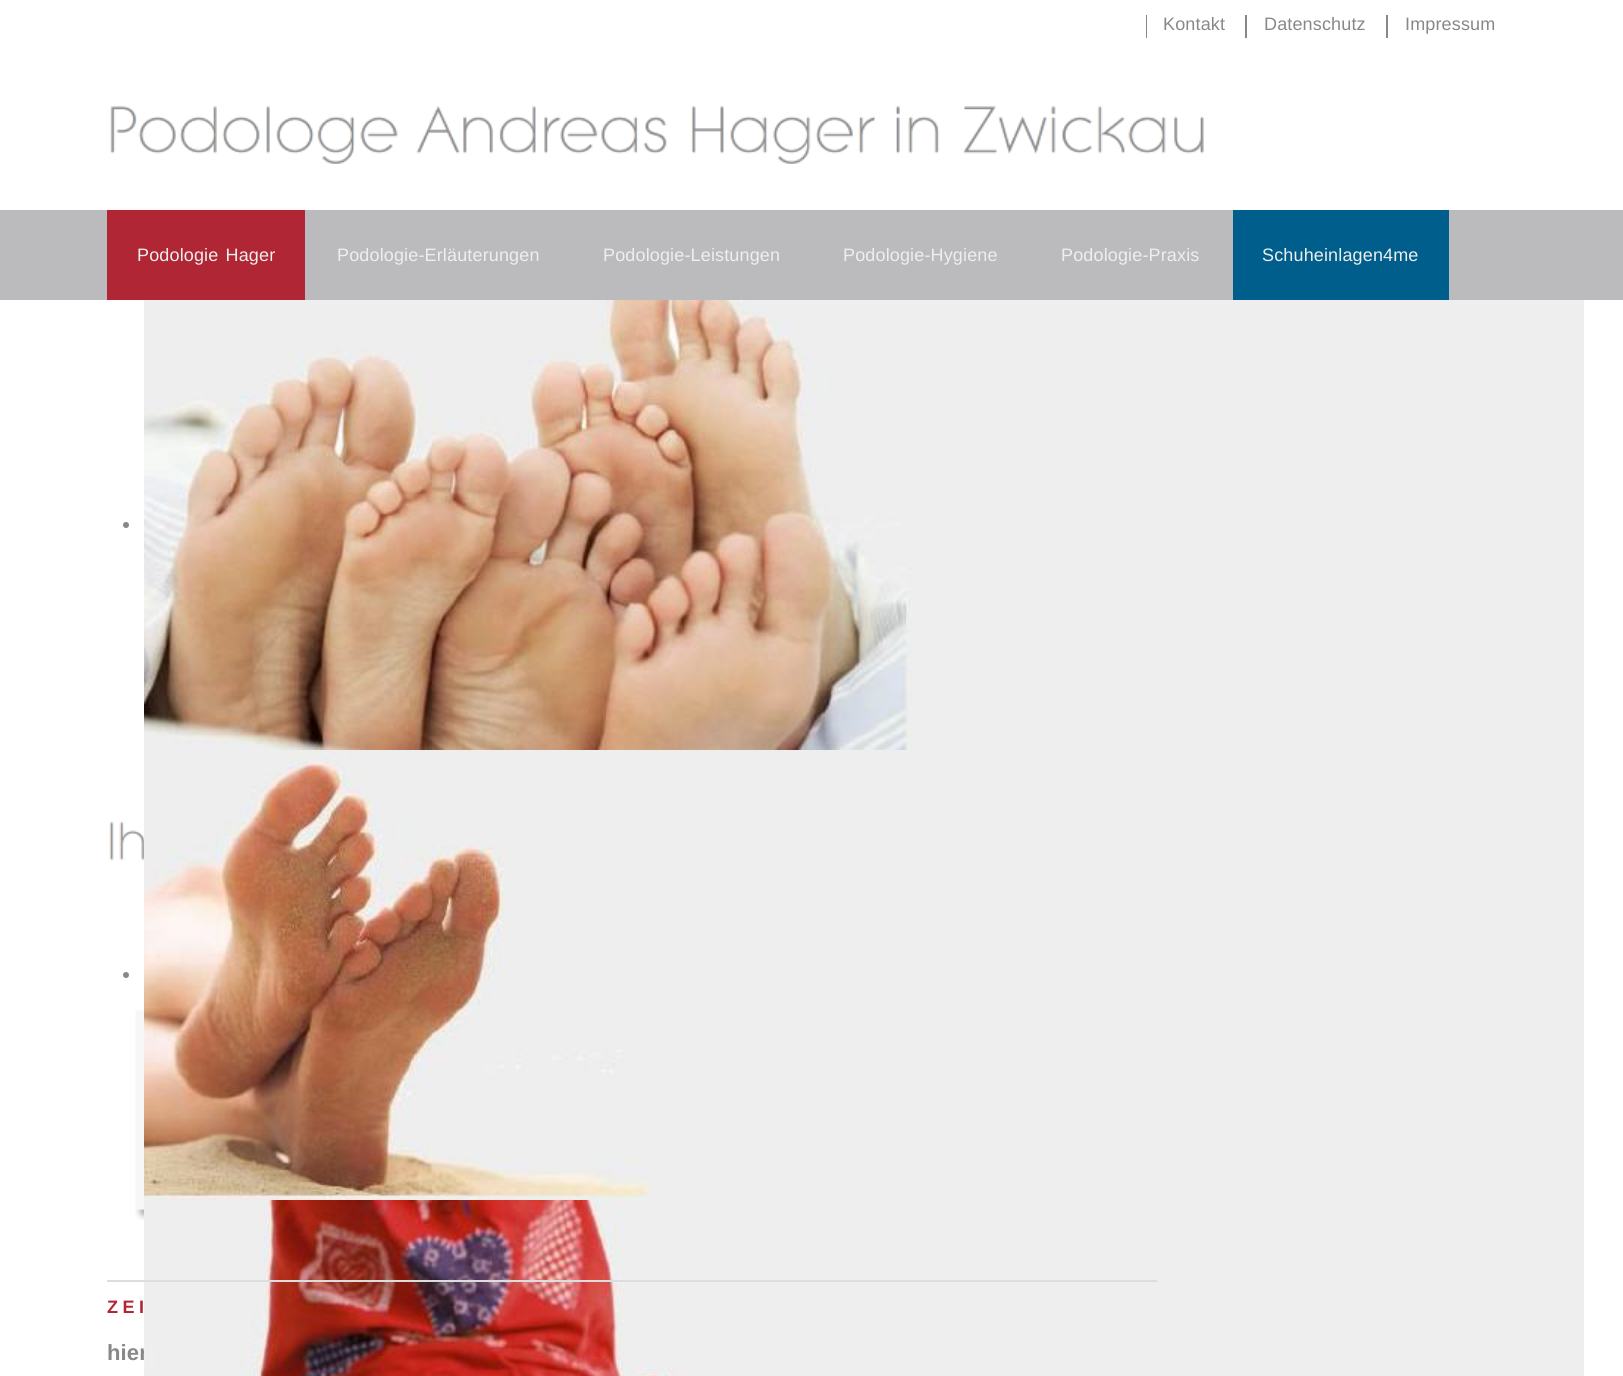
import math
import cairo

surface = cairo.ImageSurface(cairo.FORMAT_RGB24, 1623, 1376)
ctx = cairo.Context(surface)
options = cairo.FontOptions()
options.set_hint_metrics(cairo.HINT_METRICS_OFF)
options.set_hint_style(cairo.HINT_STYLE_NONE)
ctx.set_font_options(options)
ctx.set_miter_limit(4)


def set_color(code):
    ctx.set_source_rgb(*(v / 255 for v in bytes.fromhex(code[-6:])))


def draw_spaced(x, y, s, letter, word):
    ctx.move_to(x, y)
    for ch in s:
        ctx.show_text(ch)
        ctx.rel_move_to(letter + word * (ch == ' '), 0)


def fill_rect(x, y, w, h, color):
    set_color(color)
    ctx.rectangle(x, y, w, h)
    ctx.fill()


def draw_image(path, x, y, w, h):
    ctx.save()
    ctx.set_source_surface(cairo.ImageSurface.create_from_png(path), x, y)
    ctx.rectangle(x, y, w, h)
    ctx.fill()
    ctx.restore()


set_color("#ffffff")
ctx.paint()
fill_rect(1146, 15, 1, 23, "#888888")
ctx.select_font_face("Liberation Sans")
ctx.set_font_size(18)
draw_spaced(1163, 30, "Kontakt", 0.15, 0)
fill_rect(1245, 15, 2, 23, "#888888")
draw_spaced(1264, 30, "Datenschutz", 0.15, 0)
fill_rect(1386, 15, 2, 23, "#888888")
draw_spaced(1405, 30, "Impressum", 0.15, 0)
draw_image("assets/img1.png", 110, 106, 1094, 58)
fill_rect(0, 210, 1623, 90, "#bbbbbd")
fill_rect(107, 210, 198, 90, "#b02635")
set_color("#eeeeee")
draw_spaced(137, 261, "Podologie Hager", 0.15, 2)
draw_spaced(337, 261, "Podologie-Erläuterungen", 0.15, 0)
draw_spaced(603, 261, "Podologie-Leistungen", 0.15, 0)
draw_spaced(843, 261, "Podologie-Hygiene", 0.15, 0)
draw_spaced(1061, 261, "Podologie-Praxis", 0.15, 0)
fill_rect(1233, 210, 216, 90, "#005e8d")
set_color("#eeeeee")
draw_spaced(1262, 261, "Schuheinlagen4me", 0.15, 0)
set_color("#888888")
ctx.new_path()
ctx.arc(126, 525, 3, 0, 2 * math.pi)
ctx.fill()
draw_image("assets/img2.png", 144, 300, 1440, 450)
ctx.arc(126, 975, 3, 0, 2 * math.pi)
ctx.fill()
draw_image("assets/img3.png", 144, 750, 1440, 450)
ctx.select_font_face("Liberation Sans", cairo.FONT_SLANT_NORMAL, cairo.FONT_WEIGHT_BOLD)
ctx.set_font_size(22)
draw_spaced(107, 1360, "hier", 0.15, 2)
draw_image("assets/img4.png", 144, 1200, 1440, 176)
draw_image("assets/img5.png", 109, 821, 35, 48)
draw_image("assets/img6.png", 135, 905, 9, 315)
fill_rect(107, 1280, 1050, 2, "#dddddd")
ctx.set_font_size(18)
set_color("#b02635")
draw_spaced(107, 1313, "ZEI", 4.5, 2)
surface.write_to_png("output.png")
